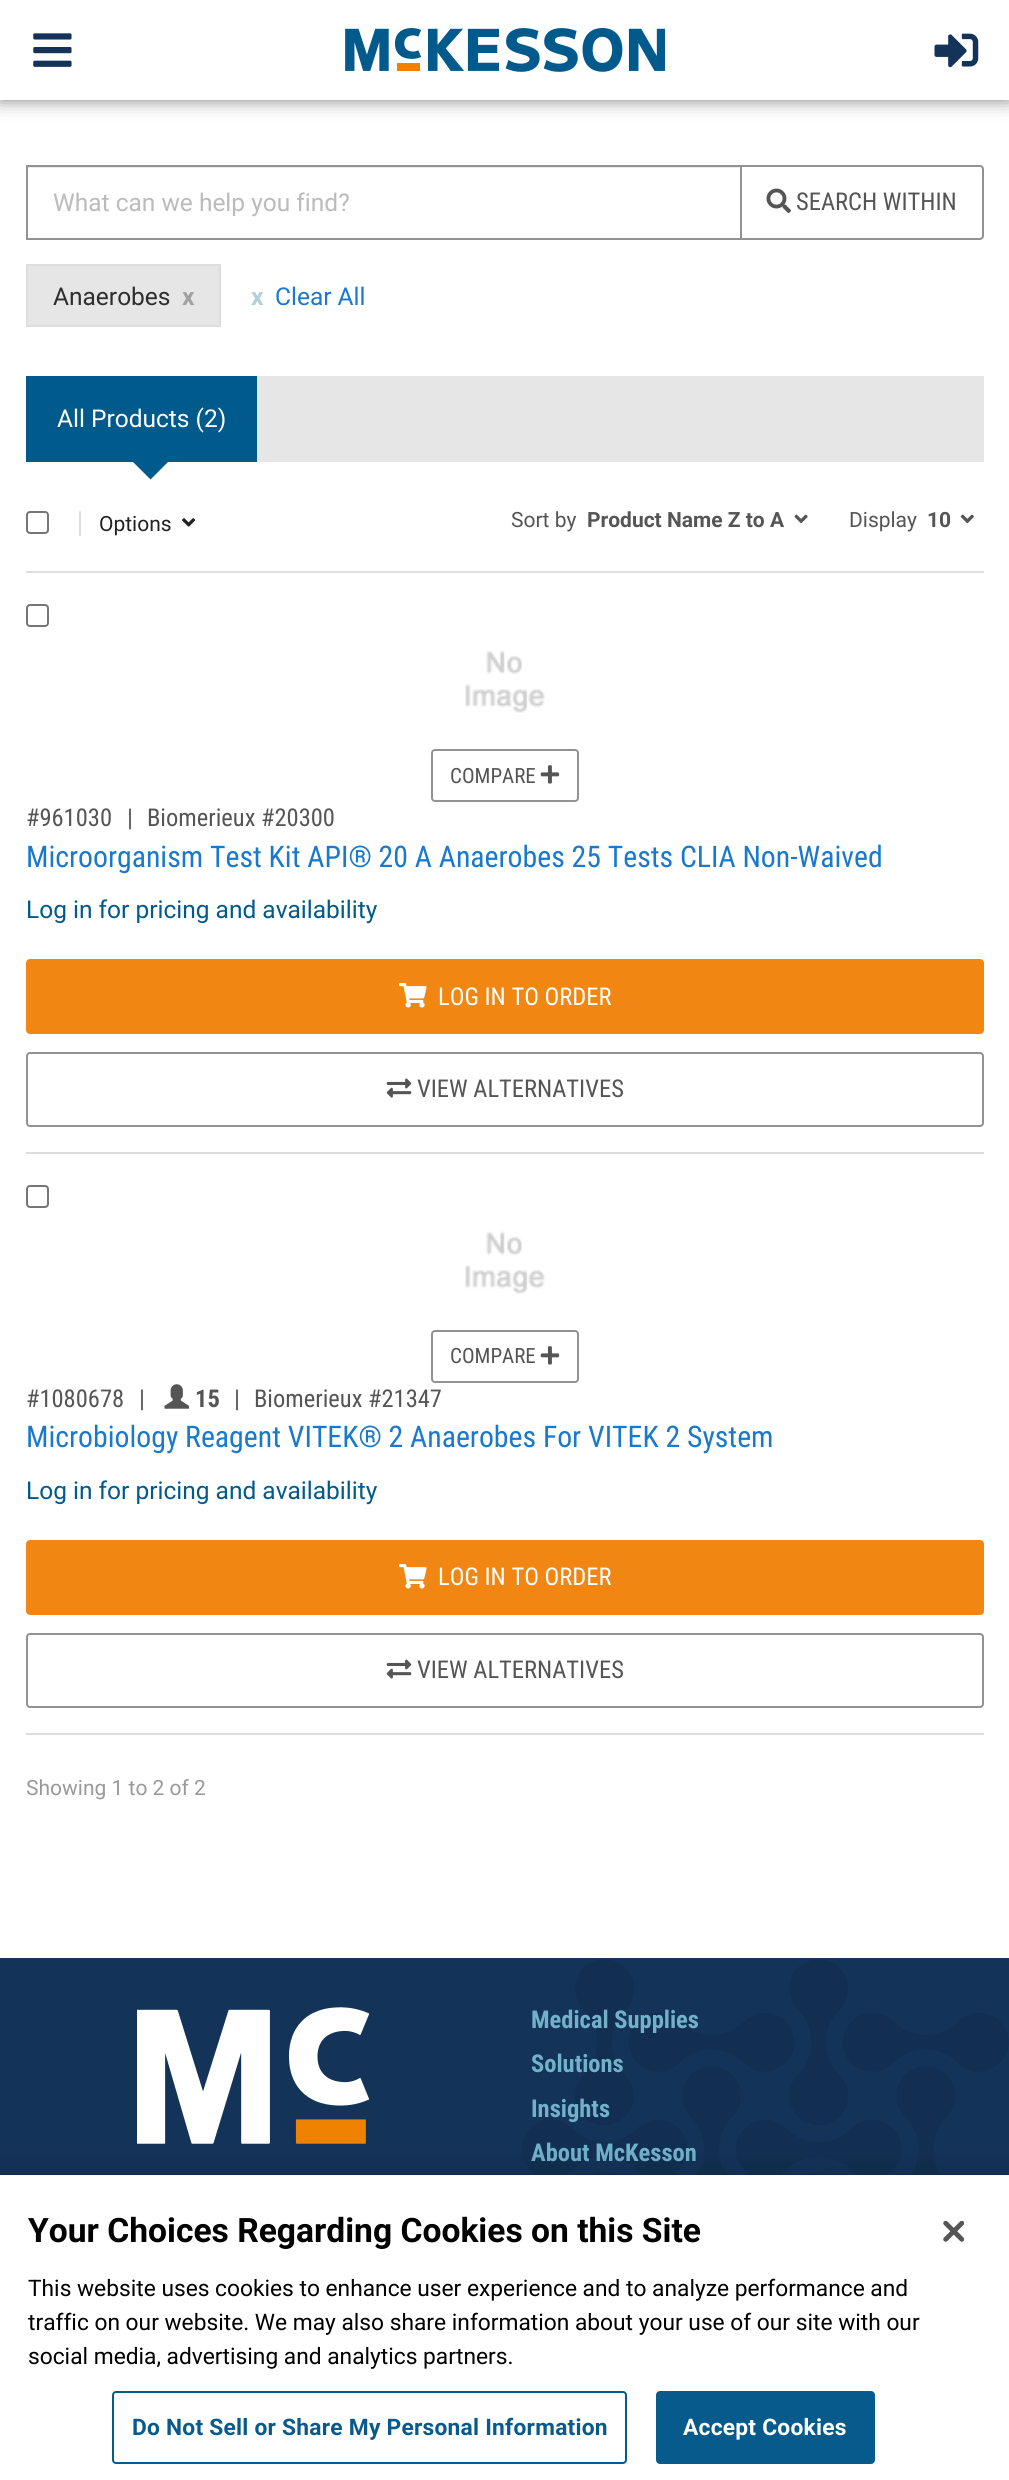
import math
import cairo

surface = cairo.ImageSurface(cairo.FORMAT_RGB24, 1009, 2480)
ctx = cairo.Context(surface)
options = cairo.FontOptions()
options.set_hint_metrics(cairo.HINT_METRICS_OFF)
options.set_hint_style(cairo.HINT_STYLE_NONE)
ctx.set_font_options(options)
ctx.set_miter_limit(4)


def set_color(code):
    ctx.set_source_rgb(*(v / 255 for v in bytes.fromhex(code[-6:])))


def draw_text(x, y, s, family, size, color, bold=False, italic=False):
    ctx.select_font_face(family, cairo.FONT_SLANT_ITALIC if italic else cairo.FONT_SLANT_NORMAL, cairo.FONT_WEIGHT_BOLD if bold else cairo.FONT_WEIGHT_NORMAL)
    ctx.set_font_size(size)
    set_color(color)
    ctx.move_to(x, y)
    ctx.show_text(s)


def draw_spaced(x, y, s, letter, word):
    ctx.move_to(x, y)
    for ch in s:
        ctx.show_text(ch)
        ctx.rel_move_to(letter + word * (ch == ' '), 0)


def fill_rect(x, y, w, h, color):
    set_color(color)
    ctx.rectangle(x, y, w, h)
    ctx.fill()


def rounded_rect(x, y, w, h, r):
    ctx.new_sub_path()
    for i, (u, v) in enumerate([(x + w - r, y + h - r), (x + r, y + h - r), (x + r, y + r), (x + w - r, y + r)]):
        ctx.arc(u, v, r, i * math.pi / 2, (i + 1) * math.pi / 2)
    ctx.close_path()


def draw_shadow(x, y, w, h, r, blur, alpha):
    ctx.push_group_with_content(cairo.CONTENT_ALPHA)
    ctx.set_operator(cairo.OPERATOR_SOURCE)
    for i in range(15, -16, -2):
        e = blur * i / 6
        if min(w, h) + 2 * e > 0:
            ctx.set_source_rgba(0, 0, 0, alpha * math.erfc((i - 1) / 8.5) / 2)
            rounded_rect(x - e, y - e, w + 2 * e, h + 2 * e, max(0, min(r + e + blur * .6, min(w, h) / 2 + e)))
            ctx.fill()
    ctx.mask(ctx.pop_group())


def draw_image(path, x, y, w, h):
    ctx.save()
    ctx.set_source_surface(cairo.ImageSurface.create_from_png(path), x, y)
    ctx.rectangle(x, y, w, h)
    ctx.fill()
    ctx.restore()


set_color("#ffffff")
ctx.paint()
set_color("#000000")
draw_shadow(0, 0, 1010, 100, 0, 9, 0.5)
fill_rect(0, 0, 1009, 100, "#ffffff")
draw_image("assets/img1.png", 33, 33, 39, 34)
draw_image("assets/img2.png", 345, 28, 320, 44)
draw_image("assets/img3.png", 934, 33, 45, 35)
fill_rect(28, 167, 712, 1, "#ececec")
ctx.rectangle(27, 166, 714, 73)
set_color("#929292")
ctx.stroke()
draw_text(53, 211, "What can we help you find?", "Roboto", 24.5, "#bbbbbb")
set_color("#ffffff")
ctx.new_path()
ctx.move_to(741, 166)
ctx.line_to(980, 166)
ctx.curve_to(981.5, 166, 983, 167.5, 983, 169)
ctx.line_to(983, 236)
ctx.curve_to(983, 237.5, 981.5, 239, 980, 239)
ctx.line_to(741, 239)
ctx.close_path()
ctx.fill_preserve()
set_color("#929292")
ctx.stroke()
draw_image("assets/img4.png", 766, 188, 25, 25)
draw_text(796, 210, "SEARCH WITHIN", "Roboto Condensed", 24.5, "#555555")
set_color("#e6e6e6")
ctx.rectangle(27, 265, 193, 61)
ctx.fill_preserve()
set_color("#dddddd")
ctx.stroke()
draw_text(53, 305, "Anaerobes", "Roboto", 24.5, "#2e2e2e")
draw_text(182, 305, "x", "Roboto", 24.5, "#a1a1a1", bold=True)
draw_text(251, 305, "x", "Roboto", 24.5, "#b3cedd", bold=True)
draw_text(275, 305, "Clear All", "Roboto", 24.5, "#1879cd")
fill_rect(257, 376, 727, 86, "#e6e6e6")
fill_rect(26, 376, 231, 86, "#005a8c")
draw_text(57, 427, "All Products (2)", "Roboto", 24.5, "#ffffff")
set_color("#005a8c")
ctx.new_path()
ctx.move_to(133, 462)
ctx.line_to(168, 462)
ctx.line_to(150.5, 479.5)
ctx.close_path()
ctx.fill()
fill_rect(26, 571, 958, 2, "#dddddd")
rounded_rect(27, 512, 21, 21, 3)
set_color("#767676")
ctx.stroke()
fill_rect(79, 511, 2, 25, "#dddddd")
draw_text(99, 531, "Options", "Roboto", 21, "#222222")
draw_image("assets/img5.png", 182, 518, 14, 9)
draw_text(511, 527, "Sort by", "Roboto", 21, "#555555")
draw_text(587, 527, "Product Name Z to A", "Roboto", 21, "#555555", bold=True)
draw_image("assets/img6.png", 794, 514, 14, 10)
draw_text(849, 527, "Display", "Roboto", 21, "#555555")
draw_text(927, 527, "10", "Roboto", 21, "#555555", bold=True)
draw_image("assets/img7.png", 960, 514, 14, 10)
fill_rect(26, 1152, 958, 2, "#dddddd")
rounded_rect(27, 605, 21, 21, 3)
set_color("#767676")
ctx.stroke()
draw_image("assets/img8.png", 465, 650, 80, 63)
rounded_rect(432, 750, 146, 51, 3)
set_color("#929292")
ctx.stroke()
draw_text(450, 783, "COMPARE", "Roboto Condensed", 21, "#555555")
draw_image("assets/img9.png", 540, 765, 20, 19)
draw_text(26, 826, "#961030", "Roboto Condensed", 24.5, "#555555")
draw_text(127, 826, "|", "Roboto Condensed", 24.5, "#555555")
draw_text(147, 826, "Biomerieux #20300", "Roboto Condensed", 24.5, "#555555")
draw_text(26, 867, "Microorganism Test Kit API® 20 A Anaerobes 25 Tests CLIA Non-Waived", "Roboto Condensed", 29.75, "#1879cd")
draw_text(26, 918, "Log in for pricing and availability", "Roboto", 24.5, "#005a8c")
set_color("#f18712")
rounded_rect(27, 960, 956, 73, 3)
ctx.fill_preserve()
ctx.stroke()
draw_image("assets/img10.png", 399, 983, 28, 25)
draw_text(438, 1005, "LOG IN TO ORDER", "Roboto Condensed", 24.5, "#ffffff")
rounded_rect(27, 1053, 956, 73, 3)
set_color("#929292")
ctx.stroke()
draw_image("assets/img11.png", 386, 1078, 26, 20)
draw_text(417, 1097, "VIEW ALTERNATIVES", "Roboto Condensed", 24.5, "#555555")
fill_rect(26, 1733, 958, 2, "#dddddd")
rounded_rect(27, 1186, 21, 21, 3)
set_color("#767676")
ctx.stroke()
draw_image("assets/img8.png", 465, 1231, 80, 63)
rounded_rect(432, 1331, 146, 51, 3)
set_color("#929292")
ctx.stroke()
draw_text(450, 1363, "COMPARE", "Roboto Condensed", 21, "#555555")
draw_image("assets/img9.png", 540, 1346, 20, 19)
draw_text(26, 1407, "#1080678", "Roboto Condensed", 24.5, "#555555")
draw_text(139, 1407, "|", "Roboto Condensed", 24.5, "#555555")
draw_image("assets/img12.png", 164, 1384, 25, 25)
draw_text(195, 1407, "15", "Roboto Condensed", 24.5, "#555555", bold=True)
draw_text(234, 1407, "|", "Roboto Condensed", 24.5, "#555555")
draw_text(254, 1407, "Biomerieux #21347", "Roboto Condensed", 24.5, "#555555")
draw_text(26, 1447, "Microbiology Reagent VITEK® 2 Anaerobes For VITEK 2 System", "Roboto Condensed", 29.75, "#1879cd")
draw_text(26, 1499, "Log in for pricing and availability", "Roboto", 24.5, "#005a8c")
set_color("#f18712")
rounded_rect(27, 1541, 956, 73, 3)
ctx.fill_preserve()
ctx.stroke()
draw_image("assets/img10.png", 399, 1564, 28, 25)
draw_text(438, 1585, "LOG IN TO ORDER", "Roboto Condensed", 24.5, "#ffffff")
rounded_rect(27, 1634, 956, 73, 3)
set_color("#929292")
ctx.stroke()
draw_image("assets/img11.png", 386, 1659, 26, 20)
draw_text(417, 1678, "VIEW ALTERNATIVES", "Roboto Condensed", 24.5, "#555555")
draw_text(26, 1795, "Showing 1 to 2 of 2", "Roboto", 21, "#999999")
fill_rect(0, 1958, 1009, 217, "#143359")
draw_image("assets/img13.png", 522, 1959, 487, 216)
draw_image("assets/img14.png", 137, 2007, 232, 137)
draw_text(531, 2028, "Medical Supplies", "Roboto Condensed", 24.5, "#71b2c9", bold=True)
draw_text(531, 2072, "Solutions", "Roboto Condensed", 24.5, "#71b2c9", bold=True)
draw_text(531, 2117, "Insights", "Roboto Condensed", 24.5, "#71b2c9", bold=True)
draw_text(531, 2161, "About McKesson", "Roboto Condensed", 24.5, "#71b2c9", bold=True)
set_color("#000000")
draw_shadow(0, 2175, 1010, 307, 0, 16, 0.2)
fill_rect(0, 2175, 1009, 305, "#ffffff")
draw_text(28, 2242, "Your Choices Regarding Cookies on this Site", "Roboto", 33.6, "#000000", bold=True)
draw_text(28, 2296, "This website uses cookies to enhance user experience and to analyze performance and", "Roboto", 22.75, "#000000")
draw_text(28, 2330, "traffic on our website. We may also share information about your use of our site with our", "Roboto", 22.75, "#000000")
draw_text(28, 2364, "social media, advertising and analytics partners.", "Roboto", 22.75, "#000000")
rounded_rect(113, 2392, 513, 71, 3)
set_color("#075b8c")
ctx.stroke()
ctx.select_font_face("Roboto", cairo.FONT_SLANT_NORMAL, cairo.FONT_WEIGHT_BOLD)
draw_spaced(132, 2435, "Do Not Sell or Share My Personal Information", 0.25, 0)
rounded_rect(657, 2392, 217, 71, 3)
ctx.fill_preserve()
ctx.stroke()
set_color("#ffffff")
draw_spaced(683, 2435, "Accept Cookies", 0.25, 0)
draw_image("assets/img15.png", 943, 2221, 21, 21)
surface.write_to_png("output.png")
